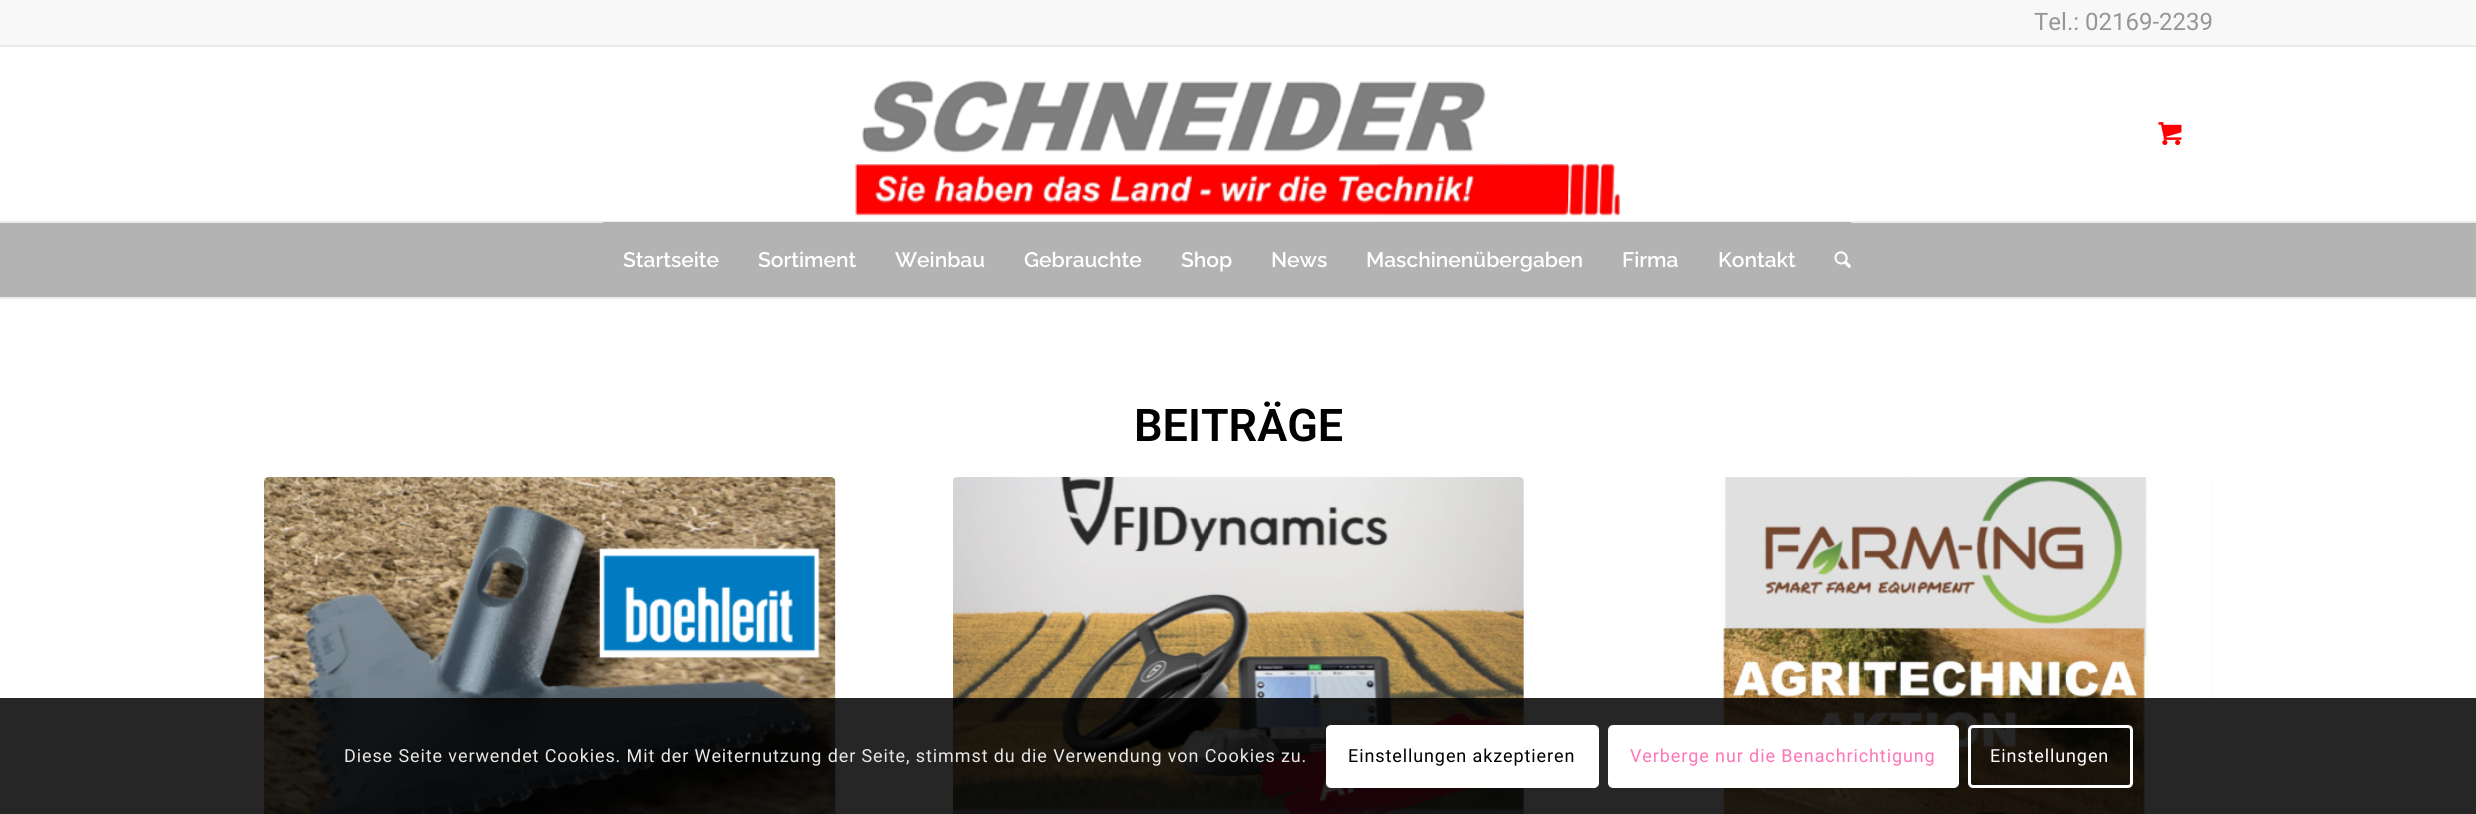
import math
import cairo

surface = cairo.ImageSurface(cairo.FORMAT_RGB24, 2476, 814)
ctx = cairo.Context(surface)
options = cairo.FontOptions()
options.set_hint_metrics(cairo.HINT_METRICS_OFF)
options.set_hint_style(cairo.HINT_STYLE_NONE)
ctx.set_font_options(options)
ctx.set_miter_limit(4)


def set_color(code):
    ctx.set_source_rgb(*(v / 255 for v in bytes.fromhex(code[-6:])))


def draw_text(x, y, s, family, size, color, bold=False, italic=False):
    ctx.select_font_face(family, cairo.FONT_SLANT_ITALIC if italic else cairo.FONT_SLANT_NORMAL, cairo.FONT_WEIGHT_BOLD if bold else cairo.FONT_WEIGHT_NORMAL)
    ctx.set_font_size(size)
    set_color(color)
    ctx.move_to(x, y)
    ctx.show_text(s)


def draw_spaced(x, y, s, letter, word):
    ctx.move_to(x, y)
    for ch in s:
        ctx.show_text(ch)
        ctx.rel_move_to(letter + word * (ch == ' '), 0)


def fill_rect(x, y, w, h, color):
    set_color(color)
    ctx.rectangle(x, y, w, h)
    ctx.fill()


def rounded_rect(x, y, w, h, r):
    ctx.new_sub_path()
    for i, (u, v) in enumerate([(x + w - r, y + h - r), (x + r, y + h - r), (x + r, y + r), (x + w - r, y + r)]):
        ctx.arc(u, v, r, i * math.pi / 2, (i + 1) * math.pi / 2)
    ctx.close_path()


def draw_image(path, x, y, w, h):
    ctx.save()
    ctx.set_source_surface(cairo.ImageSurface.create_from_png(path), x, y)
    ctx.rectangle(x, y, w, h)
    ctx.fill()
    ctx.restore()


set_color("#ffffff")
ctx.paint()
fill_rect(0, 0, 2476, 45, "#f8f8f8")
fill_rect(0, 45, 2476, 2, "#ebebeb")
draw_text(2034, 30, "Tel.: 02169-2239", "Roboto", 24, "#969696")
fill_rect(0, 297, 2476, 2, "#ebebeb")
draw_image("assets/img1.png", 855, 80, 765, 137)
draw_image("assets/img2.png", 2158, 122, 24, 23)
fill_rect(0, 223, 2476, 74, "#b3b3b3")
fill_rect(0, 221, 2476, 2, "#ebebeb")
fill_rect(603, 222, 1248, 1, "#b3b3b3")
draw_text(623, 267, "Startseite", "Raleway SemiBold", 21, "#ffffff")
draw_text(758, 267, "Sortiment", "Raleway SemiBold", 21, "#ffffff")
draw_text(895, 267, "Weinbau", "Raleway SemiBold", 21, "#ffffff")
draw_text(1024, 267, "Gebrauchte", "Raleway SemiBold", 21, "#ffffff")
draw_text(1181, 267, "Shop", "Raleway SemiBold", 21, "#ffffff")
draw_text(1271, 267, "News", "Raleway SemiBold", 21, "#ffffff")
draw_text(1366, 267, "Maschinenübergaben", "Raleway SemiBold", 21, "#ffffff")
draw_text(1622, 267, "Firma", "Raleway SemiBold", 21, "#ffffff")
draw_text(1718, 267, "Kontakt", "Raleway SemiBold", 21, "#ffffff")
draw_image("assets/img3.png", 1834, 251, 17, 17)
draw_text(1134, 441, "BEITRÄGE", "Roboto SemiBold", 45, "#000000")
set_color("#f8f8f8")
rounded_rect(264, 477, 572, 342, 5)
ctx.fill()
draw_image("assets/img4.png", 264, 477, 572, 337)
rounded_rect(953, 477, 571, 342, 5)
ctx.fill()
draw_image("assets/img5.png", 953, 477, 571, 337)
rounded_rect(1641, 477, 572, 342, 5)
ctx.fill()
draw_image("assets/img6.png", 1641, 477, 571, 337)
ctx.set_source_rgba(0, 0, 0, 0.85)
ctx.rectangle(0, 698, 2476, 116)
ctx.fill()
ctx.select_font_face("Roboto")
ctx.set_font_size(18)
set_color("#e7e7e7")
draw_spaced(344, 762, "Diese Seite verwendet Cookies. Mit der Weiternutzung der Seite, stimmst du die Verwendung von Cookies zu.", 0.9, 0)
set_color("#ffffff")
rounded_rect(1326, 725, 273, 63, 5)
ctx.fill()
set_color("#000000")
draw_spaced(1348, 762, "Einstellungen akzeptieren", 0.9, 0)
set_color("#ffffff")
rounded_rect(1609.5, 726.5, 348, 60, 3.5)
ctx.fill_preserve()
ctx.set_line_width(3)
ctx.stroke()
set_color("#ff75b5")
draw_spaced(1630, 762, "Verberge nur die Benachrichtigung", 0.9, 0)
rounded_rect(1969.5, 726.5, 162, 60, 3.5)
set_color("#ffffff")
ctx.stroke()
draw_spaced(1990, 762, "Einstellungen", 0.9, 0)
surface.write_to_png("output.png")
